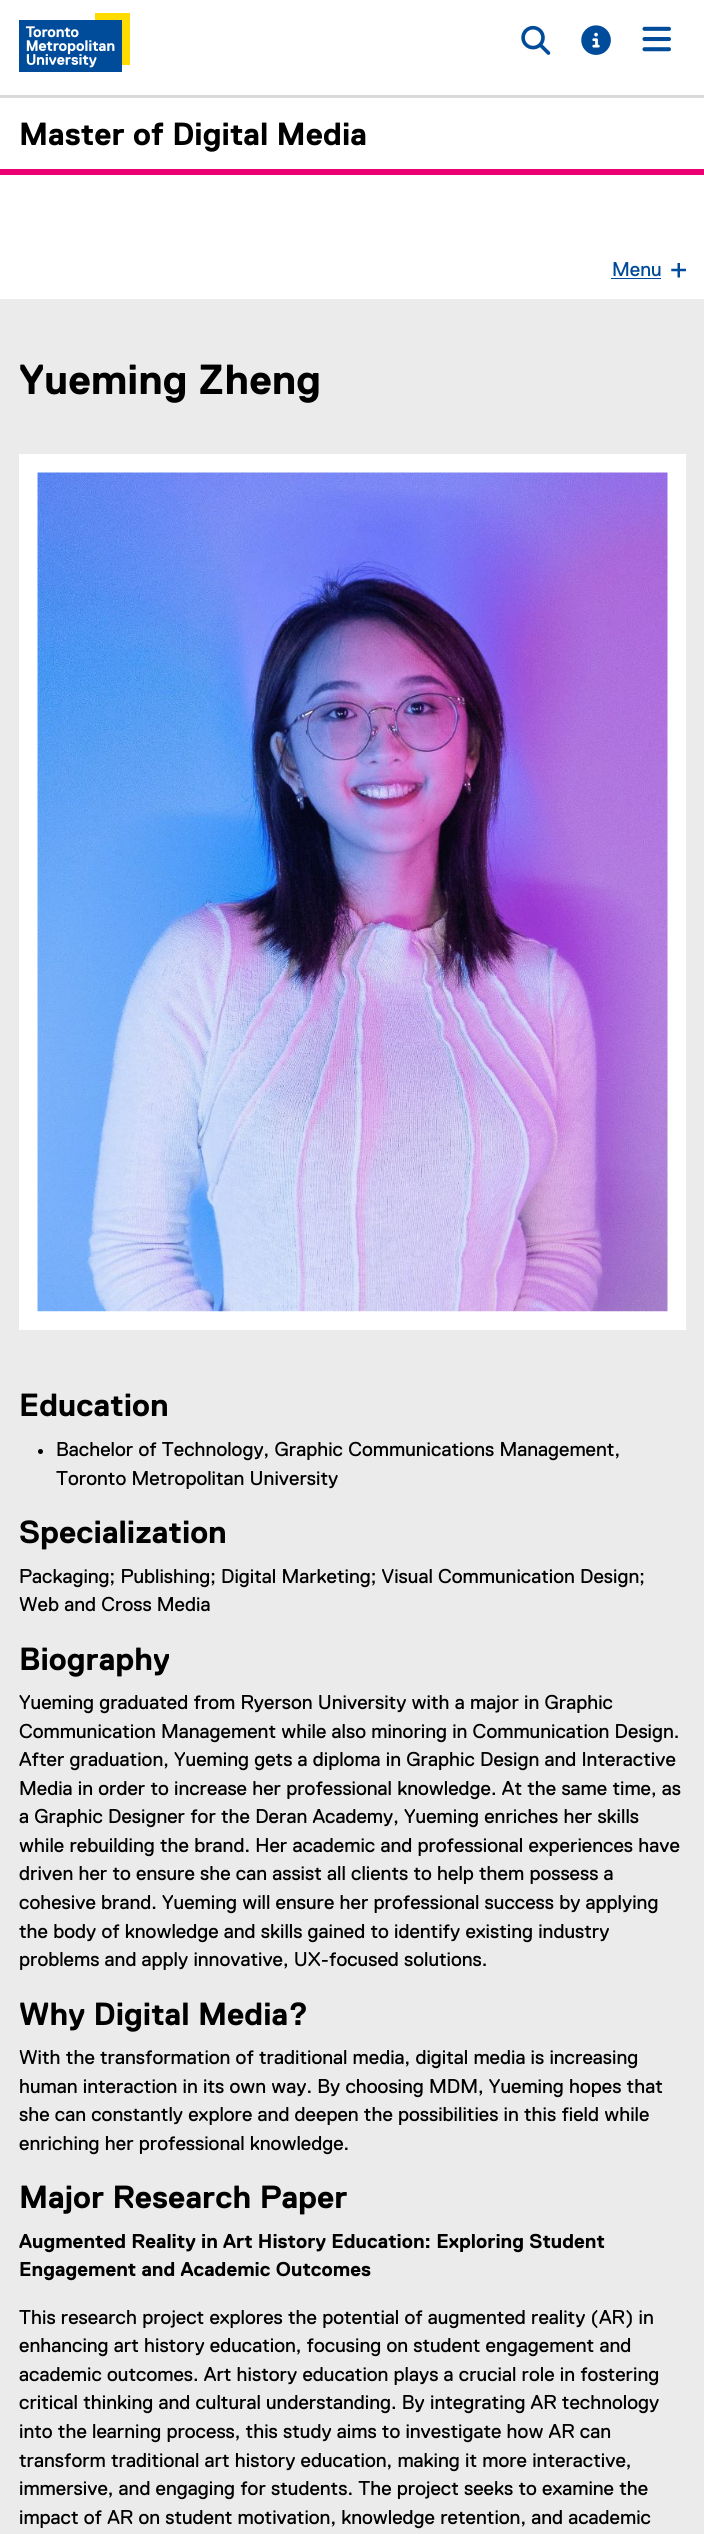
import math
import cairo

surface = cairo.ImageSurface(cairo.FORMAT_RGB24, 704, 2534)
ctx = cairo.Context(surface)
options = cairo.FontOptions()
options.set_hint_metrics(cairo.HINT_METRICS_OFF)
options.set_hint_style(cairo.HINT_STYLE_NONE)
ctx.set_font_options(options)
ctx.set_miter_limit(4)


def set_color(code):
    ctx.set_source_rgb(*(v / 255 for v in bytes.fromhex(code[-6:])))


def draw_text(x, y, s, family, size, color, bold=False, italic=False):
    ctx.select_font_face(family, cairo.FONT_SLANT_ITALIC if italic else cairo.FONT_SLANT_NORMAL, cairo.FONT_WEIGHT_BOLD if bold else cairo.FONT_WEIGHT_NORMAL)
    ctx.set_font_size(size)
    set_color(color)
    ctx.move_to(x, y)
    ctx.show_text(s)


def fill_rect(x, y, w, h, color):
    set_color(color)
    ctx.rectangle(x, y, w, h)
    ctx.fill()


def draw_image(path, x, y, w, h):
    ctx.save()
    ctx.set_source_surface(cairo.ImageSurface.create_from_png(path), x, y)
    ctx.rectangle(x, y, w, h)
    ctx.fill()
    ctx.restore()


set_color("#ebebeb")
ctx.paint()
fill_rect(0, 0, 704, 95, "#ffffff")
fill_rect(0, 95, 704, 3, "#d9d9d9")
draw_image("assets/img1.png", 19, 13, 111, 59)
draw_image("assets/img2.png", 521, 25, 30, 30)
draw_image("assets/img3.png", 581, 25, 30, 30)
draw_image("assets/img4.png", 642, 26, 29, 26)
fill_rect(0, 98, 704, 201, "#ffffff")
draw_text(19, 145, "Master of Digital Media", "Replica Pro", 32, "#000000", bold=True)
fill_rect(0, 169, 704, 6, "#eb0172")
draw_text(612, 276, "Menu", "Replica Pro", 20, "#004c9b")
fill_rect(611, 278, 50, 1, "#004c9b")
draw_image("assets/img5.png", 671, 263, 15, 15)
draw_text(19, 394, "Yueming Zheng", "Replica Pro", 42, "#000000", bold=True)
fill_rect(19, 454, 667, 876, "#ffffff")
draw_image("assets/img6.png", 37, 472, 631, 840)
draw_text(19, 1416, "Education", "Replica Pro", 32, "#000000", bold=True)
ctx.new_path()
ctx.arc(40.5, 1451.5, 2.5, 0, 2 * math.pi)
ctx.fill()
draw_text(56, 1456, "Bachelor of Technology, Graphic Communications Management,", "Replica Pro", 20, "#000000")
draw_text(56, 1485, "Toronto Metropolitan University", "Replica Pro", 20, "#000000")
draw_text(19, 1543, "Specialization", "Replica Pro", 32, "#000000", bold=True)
draw_text(19, 1583, "Packaging; Publishing; Digital Marketing; Visual Communication Design;", "Replica Pro", 20, "#000000")
draw_text(19, 1611, "Web and Cross Media", "Replica Pro", 20, "#000000")
draw_text(19, 1670, "Biography", "Replica Pro", 32, "#000000", bold=True)
draw_text(19, 1709, "Yueming graduated from Ryerson University with a major in Graphic", "Replica Pro", 20, "#000000")
draw_text(19, 1738, "Communication Management while also minoring in Communication Design.", "Replica Pro", 20, "#000000")
draw_text(19, 1766, "After graduation, Yueming gets a diploma in Graphic Design and Interactive", "Replica Pro", 20, "#000000")
draw_text(19, 1795, "Media in order to increase her professional knowledge. At the same time, as", "Replica Pro", 20, "#000000")
draw_text(19, 1823, "a Graphic Designer for the Deran Academy, Yueming enriches her skills", "Replica Pro", 20, "#000000")
draw_text(19, 1852, "while rebuilding the brand. Her academic and professional experiences have", "Replica Pro", 20, "#000000")
draw_text(19, 1880, "driven her to ensure she can assist all clients to help them possess a", "Replica Pro", 20, "#000000")
draw_text(19, 1909, "cohesive brand. Yueming will ensure her professional success by applying", "Replica Pro", 20, "#000000")
draw_text(19, 1938, "the body of knowledge and skills gained to identify existing industry", "Replica Pro", 20, "#000000")
draw_text(19, 1966, "problems and apply innovative, UX-focused solutions.", "Replica Pro", 20, "#000000")
draw_text(19, 2025, "Why Digital Media?", "Replica Pro", 32, "#000000", bold=True)
draw_text(19, 2064, "With the transformation of traditional media, digital media is increasing", "Replica Pro", 20, "#000000")
draw_text(19, 2093, "human interaction in its own way. By choosing MDM, Yueming hopes that", "Replica Pro", 20, "#000000")
draw_text(19, 2121, "she can constantly explore and deepen the possibilities in this field while", "Replica Pro", 20, "#000000")
draw_text(19, 2150, "enriching her professional knowledge.", "Replica Pro", 20, "#000000")
draw_text(19, 2208, "Major Research Paper", "Replica Pro", 32, "#000000", bold=True)
draw_text(19, 2248, "Augmented Reality in Art History Education: Exploring Student", "Replica Pro", 20, "#000000", bold=True)
draw_text(19, 2276, "Engagement and Academic Outcomes", "Replica Pro", 20, "#000000", bold=True)
draw_text(19, 2324, "This research project explores the potential of augmented reality (AR) in", "Replica Pro", 20, "#000000")
draw_text(19, 2352, "enhancing art history education, focusing on student engagement and", "Replica Pro", 20, "#000000")
draw_text(19, 2381, "academic outcomes. Art history education plays a crucial role in fostering", "Replica Pro", 20, "#000000")
draw_text(19, 2409, "critical thinking and cultural understanding. By integrating AR technology", "Replica Pro", 20, "#000000")
draw_text(19, 2438, "into the learning process, this study aims to investigate how AR can", "Replica Pro", 20, "#000000")
draw_text(19, 2467, "transform traditional art history education, making it more interactive,", "Replica Pro", 20, "#000000")
draw_text(19, 2495, "immersive, and engaging for students. The project seeks to examine the", "Replica Pro", 20, "#000000")
draw_text(19, 2524, "impact of AR on student motivation, knowledge retention, and academic", "Replica Pro", 20, "#000000")
surface.write_to_png("output.png")
